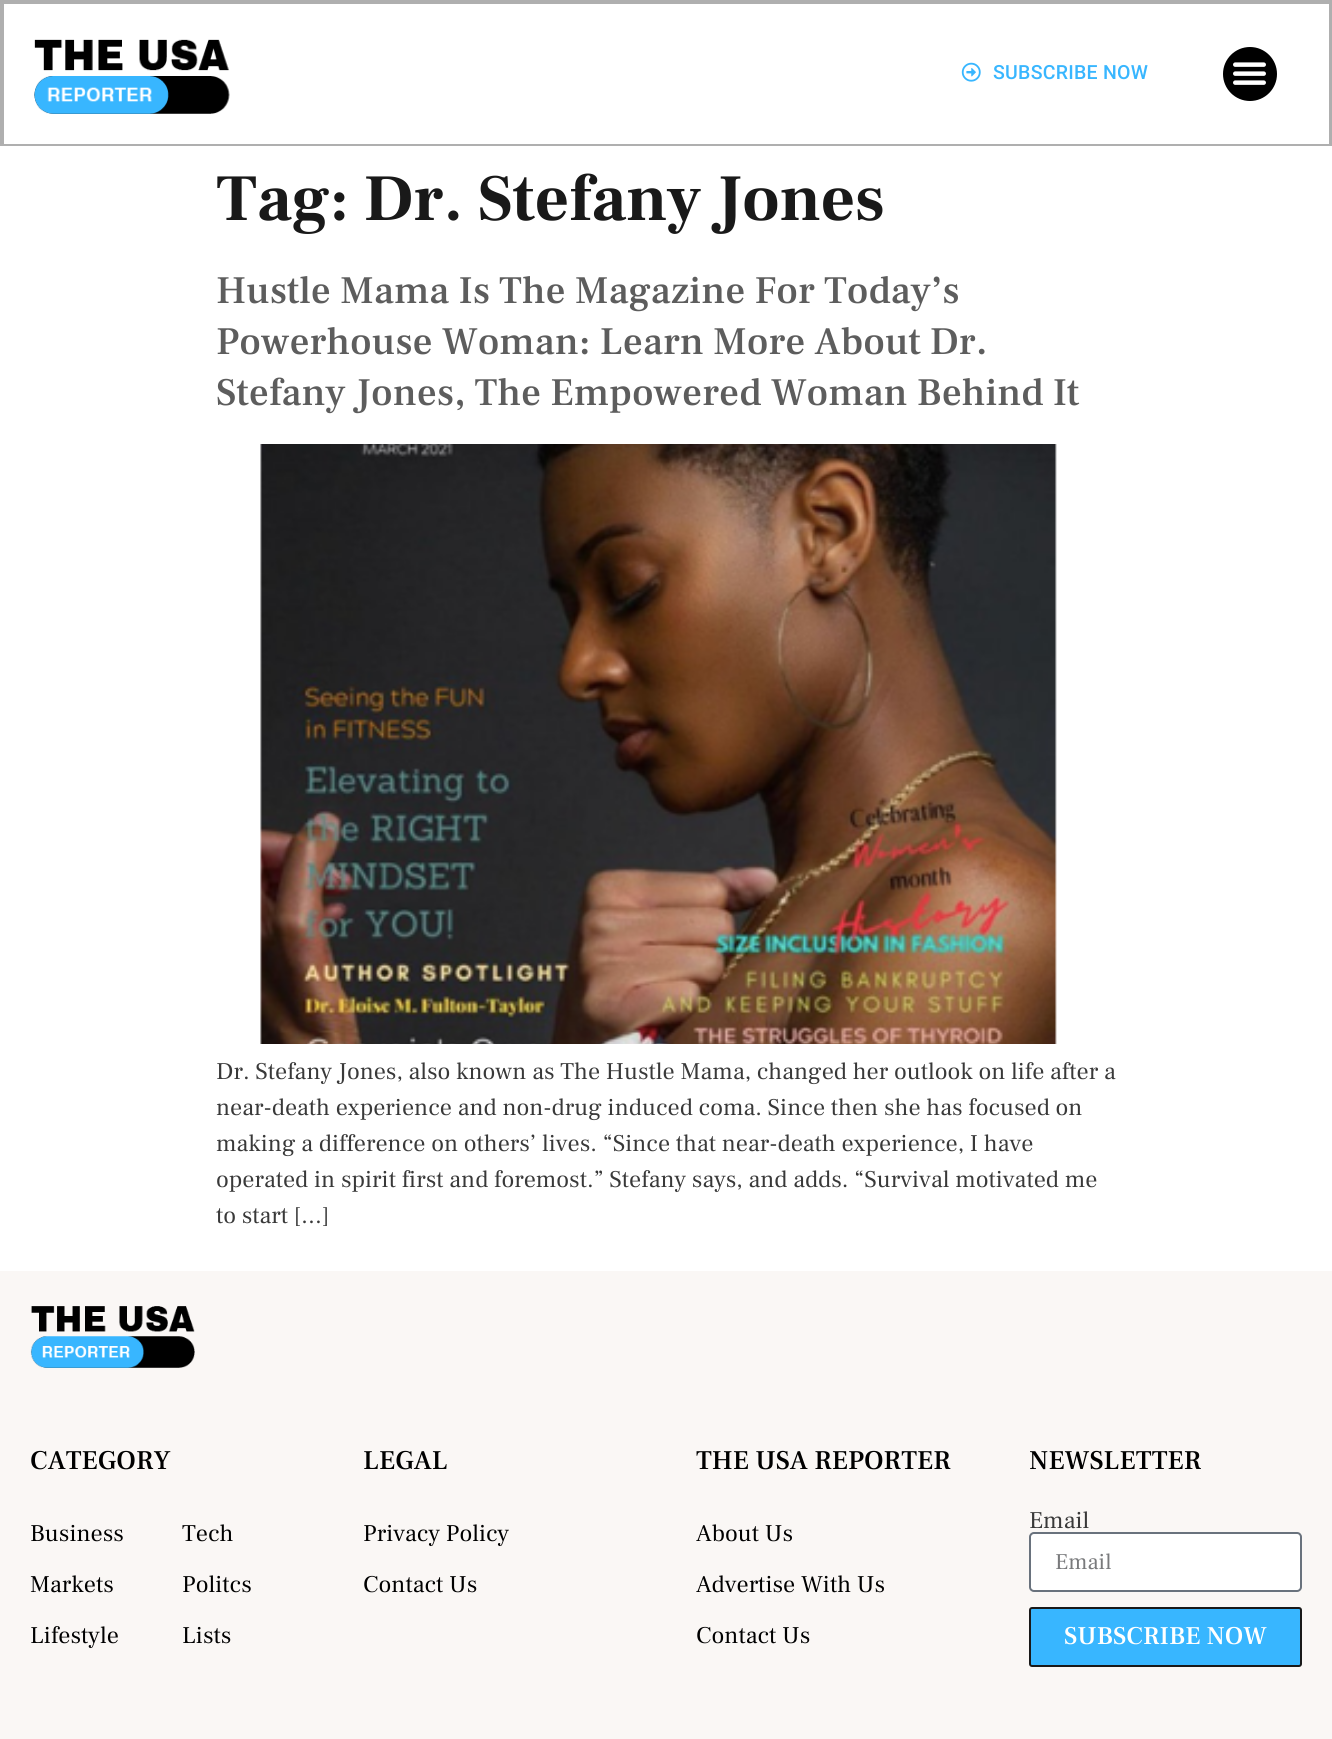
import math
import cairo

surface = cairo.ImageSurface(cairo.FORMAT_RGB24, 1332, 1739)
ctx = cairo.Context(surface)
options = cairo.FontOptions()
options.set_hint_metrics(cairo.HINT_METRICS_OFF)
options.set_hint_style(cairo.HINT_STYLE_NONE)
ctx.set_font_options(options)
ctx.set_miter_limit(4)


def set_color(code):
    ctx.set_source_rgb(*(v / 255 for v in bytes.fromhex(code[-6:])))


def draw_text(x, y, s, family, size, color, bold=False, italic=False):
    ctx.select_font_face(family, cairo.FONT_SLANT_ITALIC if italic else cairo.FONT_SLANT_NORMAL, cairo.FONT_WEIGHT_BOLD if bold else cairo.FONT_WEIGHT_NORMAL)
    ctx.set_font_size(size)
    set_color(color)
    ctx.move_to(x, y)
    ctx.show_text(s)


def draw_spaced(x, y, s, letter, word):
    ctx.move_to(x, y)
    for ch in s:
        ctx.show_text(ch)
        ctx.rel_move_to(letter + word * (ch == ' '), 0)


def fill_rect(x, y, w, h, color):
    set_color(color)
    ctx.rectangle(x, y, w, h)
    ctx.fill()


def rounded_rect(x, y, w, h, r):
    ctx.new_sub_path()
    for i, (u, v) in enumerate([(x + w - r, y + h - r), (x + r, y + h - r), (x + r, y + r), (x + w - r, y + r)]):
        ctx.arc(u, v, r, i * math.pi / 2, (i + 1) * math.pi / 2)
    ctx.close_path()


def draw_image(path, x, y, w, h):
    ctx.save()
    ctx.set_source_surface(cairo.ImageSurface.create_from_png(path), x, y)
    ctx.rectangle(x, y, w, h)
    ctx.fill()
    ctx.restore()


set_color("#ffffff")
ctx.paint()
ctx.rectangle(1, 1, 1330, 144)
set_color("#afafaf")
ctx.stroke()
fill_rect(2, 2, 1329, 2, "#afafaf")
fill_rect(1329, 2, 1, 142, "#afafaf")
fill_rect(2, 2, 2, 142, "#afafaf")
draw_image("assets/img1.png", 34, 39, 196, 75)
draw_image("assets/img2.png", 961, 62, 20, 20)
ctx.select_font_face("Roboto Medium")
ctx.set_font_size(19.5)
set_color("#38b6ff")
draw_spaced(993, 79, "SUBSCRIBE NOW", 0.25, 0)
set_color("#000000")
ctx.new_path()
ctx.arc(1250, 74, 27, 0, 2 * math.pi)
ctx.fill()
draw_image("assets/img3.png", 1233, 62, 33, 23)
draw_text(216, 220, "Tag: Dr. Stefany Jones", "Frank Ruhl Libre", 66, "#191919", bold=True)
draw_text(216, 303, "Hustle Mama Is The Magazine For Today’s", "Frank Ruhl Libre Medium", 39, "#5d5d5d")
draw_text(216, 354, "Powerhouse Woman: Learn More About Dr.", "Frank Ruhl Libre Medium", 39, "#5d5d5d")
draw_text(216, 405, "Stefany Jones, The Empowered Woman Behind It", "Frank Ruhl Libre Medium", 39, "#5d5d5d")
draw_image("assets/img4.png", 260, 444, 797, 600)
draw_text(216, 1079, "Dr. Stefany Jones, also known as The Hustle Mama, changed her outlook on life after a", "Frank Ruhl Libre", 24, "#393939")
draw_text(216, 1115, "near-death experience and non-drug induced coma. Since then she has focused on", "Frank Ruhl Libre", 24, "#393939")
draw_text(216, 1151, "making a difference on others’ lives. “Since that near-death experience, I have", "Frank Ruhl Libre", 24, "#393939")
draw_text(216, 1187, "operated in spirit first and foremost.” Stefany says, and adds. “Survival motivated me", "Frank Ruhl Libre", 24, "#393939")
draw_text(216, 1223, "to start […]", "Frank Ruhl Libre", 24, "#393939")
fill_rect(0, 1271, 1332, 468, "#faf7f5")
draw_image("assets/img5.png", 30, 1306, 165, 62)
draw_text(30, 1469, "CATEGORY", "Frank Ruhl Libre Medium", 27, "#000000")
draw_text(30, 1541, "Business", "Frank Ruhl Libre", 24, "#000000")
draw_text(30, 1592, "Markets", "Frank Ruhl Libre", 24, "#000000")
draw_text(30, 1643, "Lifestyle", "Frank Ruhl Libre", 24, "#000000")
draw_text(182, 1541, "Tech", "Frank Ruhl Libre", 24, "#000000")
draw_text(182, 1592, "Politcs", "Frank Ruhl Libre", 24, "#000000")
draw_text(182, 1643, "Lists", "Frank Ruhl Libre", 24, "#000000")
draw_text(363, 1469, "LEGAL", "Frank Ruhl Libre Medium", 27, "#000000")
draw_text(363, 1541, "Privacy Policy", "Frank Ruhl Libre", 24, "#000000")
draw_text(363, 1592, "Contact Us", "Frank Ruhl Libre", 24, "#000000")
draw_text(696, 1469, "THE USA REPORTER", "Frank Ruhl Libre Medium", 27, "#000000")
draw_text(696, 1541, "About Us", "Frank Ruhl Libre", 24, "#000000")
draw_text(696, 1592, "Advertise With Us", "Frank Ruhl Libre", 24, "#000000")
draw_text(696, 1643, "Contact Us", "Frank Ruhl Libre", 24, "#000000")
draw_text(1029, 1469, "NEWSLETTER", "Frank Ruhl Libre Medium", 27, "#000000")
draw_text(1029, 1528, "Email", "Frank Ruhl Libre", 24, "#393939")
set_color("#ffffff")
rounded_rect(1030, 1533, 271, 58, 4)
ctx.fill_preserve()
set_color("#69727d")
ctx.stroke()
draw_text(1055, 1569, "Email", "Frank Ruhl Libre", 22.5, "#797a7c")
set_color("#38b6ff")
rounded_rect(1030, 1608, 271, 58, 2)
ctx.fill_preserve()
set_color("#191919")
ctx.stroke()
draw_text(1064, 1644, "SUBSCRIBE NOW", "Frank Ruhl Libre Medium", 25.5, "#ffffff")
surface.write_to_png("output.png")
